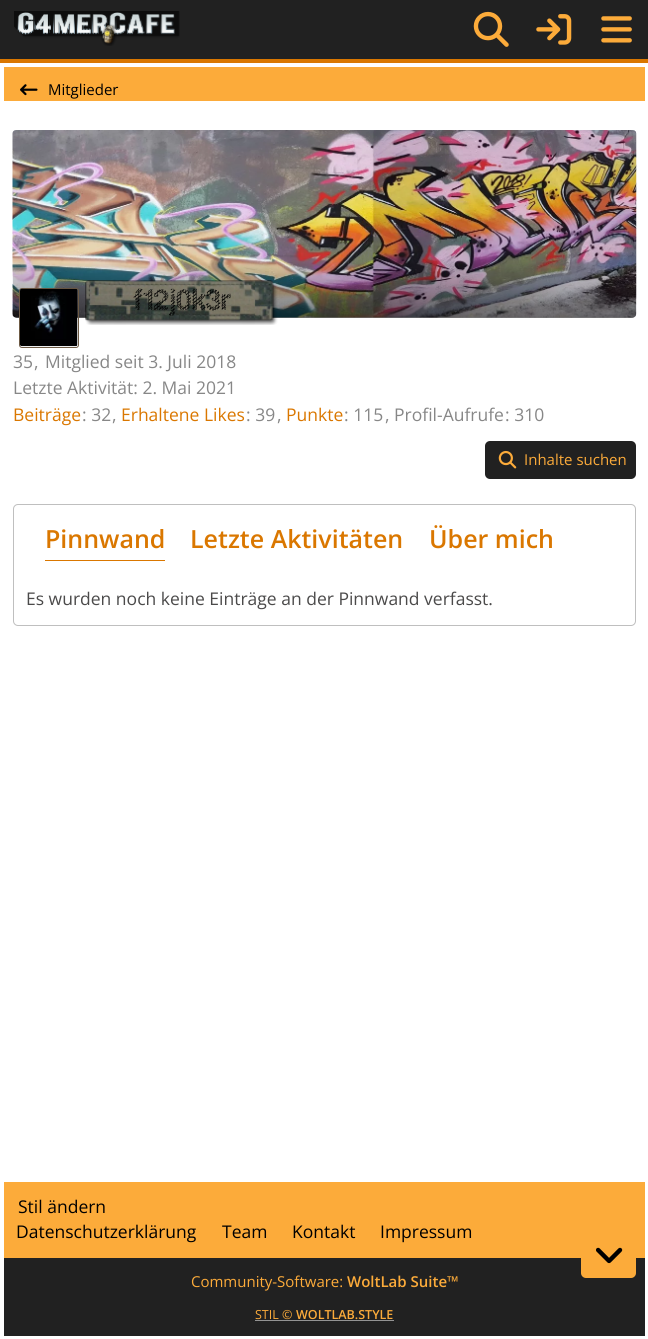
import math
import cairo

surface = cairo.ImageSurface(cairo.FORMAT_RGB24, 648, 1339)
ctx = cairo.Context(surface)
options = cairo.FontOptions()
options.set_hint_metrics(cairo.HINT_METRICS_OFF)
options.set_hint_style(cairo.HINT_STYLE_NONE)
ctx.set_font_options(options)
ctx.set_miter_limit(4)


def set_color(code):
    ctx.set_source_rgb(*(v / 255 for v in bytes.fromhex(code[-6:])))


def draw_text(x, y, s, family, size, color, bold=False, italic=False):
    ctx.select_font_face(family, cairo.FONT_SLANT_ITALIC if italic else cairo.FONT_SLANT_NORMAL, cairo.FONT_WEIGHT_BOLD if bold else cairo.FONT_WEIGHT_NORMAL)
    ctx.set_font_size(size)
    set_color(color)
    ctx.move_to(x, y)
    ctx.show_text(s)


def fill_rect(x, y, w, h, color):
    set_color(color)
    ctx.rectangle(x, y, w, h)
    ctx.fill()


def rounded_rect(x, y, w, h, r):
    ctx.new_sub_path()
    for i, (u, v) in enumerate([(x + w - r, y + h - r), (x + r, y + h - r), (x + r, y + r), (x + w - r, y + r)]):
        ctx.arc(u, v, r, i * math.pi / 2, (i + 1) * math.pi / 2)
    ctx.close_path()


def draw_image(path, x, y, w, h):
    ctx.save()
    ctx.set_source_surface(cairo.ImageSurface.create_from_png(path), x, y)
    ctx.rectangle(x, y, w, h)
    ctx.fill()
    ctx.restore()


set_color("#ffffff")
ctx.paint()
fill_rect(0, 0, 648, 59, "#212121")
fill_rect(0, 59, 648, 4, "#da7700")
draw_image("assets/img1.png", 14, 11, 166, 35)
draw_image("assets/img2.png", 473, 11, 36, 36)
draw_image("assets/img3.png", 536, 14, 36, 31)
draw_image("assets/img4.png", 601, 16, 31, 27)
fill_rect(4, 67, 641, 34, "#fcab3a")
draw_image("assets/img5.png", 20, 84, 18, 12)
draw_text(48, 95, "Mitglieder", "Open Sans", 15, "#000000")
draw_image("assets/img6.png", 12, 130, 625, 188)
gradient = cairo.LinearGradient(324, 130, 324, 318)
gradient.add_color_stop_rgba(0.7, 0, 0, 0, 0)
gradient.add_color_stop_rgba(1, 0, 0, 0, 0.5)
ctx.set_source(gradient)
ctx.new_path()
ctx.move_to(13, 130)
ctx.line_to(636, 130)
ctx.line_to(636, 314)
ctx.curve_to(636, 316, 634, 318, 632, 318)
ctx.line_to(17, 318)
ctx.curve_to(15, 318, 13, 316, 13, 314)
ctx.close_path()
ctx.fill()
draw_image("assets/img7.png", 85, 280, 193, 45)
draw_text(133, 310, "f12j0k3r", "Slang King", 30, "#000000")
draw_text(13, 368, "35", "Open Sans", 17.5, "#878787")
draw_text(34, 368, ",", "Open Sans", 17.5, "#878787")
draw_text(45, 368, "Mitglied seit 3. Juli 2018", "Open Sans", 17.5, "#878787")
draw_text(13, 394, "Letzte Aktivität: 2. Mai 2021", "Open Sans", 17.5, "#878787")
draw_text(13, 421, "Beiträge", "Open Sans", 17.5, "#da7700")
draw_text(82, 421, ": 32", "Open Sans", 17.5, "#878787")
draw_text(112, 421, ",", "Open Sans", 17.5, "#878787")
draw_text(121, 421, "Erhaltene Likes", "Open Sans", 17.5, "#da7700")
draw_text(246, 421, ": 39", "Open Sans", 17.5, "#878787")
draw_text(277, 421, ",", "Open Sans", 17.5, "#878787")
draw_text(286, 421, "Punkte", "Open Sans", 17.5, "#da7700")
draw_text(344, 421, ": 115", "Open Sans", 17.5, "#878787")
draw_text(385, 421, ", Profil-Aufrufe", "Open Sans", 17.5, "#878787")
draw_text(505, 421, ": 310", "Open Sans", 17.5, "#878787")
rounded_rect(19.5, 288.5, 59, 59, 2.5)
set_color("#6d5a44")
ctx.set_line_width(1)
ctx.stroke()
draw_image("assets/img8.png", 20, 288, 58, 59)
set_color("#212121")
rounded_rect(485, 441, 151, 38, 5)
ctx.fill()
draw_image("assets/img9.png", 498, 450, 19, 19)
draw_text(524, 465, "Inhalte suchen", "Open Sans", 15, "#fcab3a")
rounded_rect(13.5, 504.5, 622, 121, 4.5)
set_color("#bfbfbf")
ctx.stroke()
draw_text(45, 548, "Pinnwand", "Open Sans SemiBold", 25, "#da7700")
fill_rect(45, 560, 120, 1, "#da7700")
draw_text(190, 548, "Letzte Aktivitäten", "Open Sans SemiBold", 25, "#da7700")
draw_text(429, 548, "Über mich", "Open Sans SemiBold", 25, "#da7700")
draw_text(26, 605, "Es wurden noch keine Einträge an der Pinnwand verfasst.", "Open Sans", 17.5, "#4b4a4a")
fill_rect(4, 1182, 641, 76, "#fcab3a")
draw_text(18, 1213, "Stil ändern", "Open Sans", 17.5, "#000000")
draw_text(16, 1238, "Datenschutzerklärung", "Open Sans", 17.5, "#000000")
draw_text(222, 1238, "Team", "Open Sans", 17.5, "#000000")
draw_text(292, 1238, "Kontakt", "Open Sans", 17.5, "#000000")
draw_text(380, 1238, "Impressum", "Open Sans", 17.5, "#000000")
fill_rect(4, 1258, 641, 78, "#212121")
draw_text(191, 1287, "Community-Software:", "Open Sans", 15, "#fcab3a")
draw_text(347, 1287, "WoltLab Suite™", "Open Sans SemiBold", 15, "#fcab3a")
draw_text(255, 1319, "STIL ©", "Open Sans", 12.5, "#fcab3a")
fill_rect(255, 1320, 139, 1, "#939393")
draw_text(296, 1319, "WOLTLAB.STYLE", "Open Sans SemiBold", 12.5, "#fcab3a")
rounded_rect(581, 1233, 55, 45, 5)
ctx.fill()
draw_image("assets/img10.png", 596, 1247, 27, 17)
surface.write_to_png("output.png")
